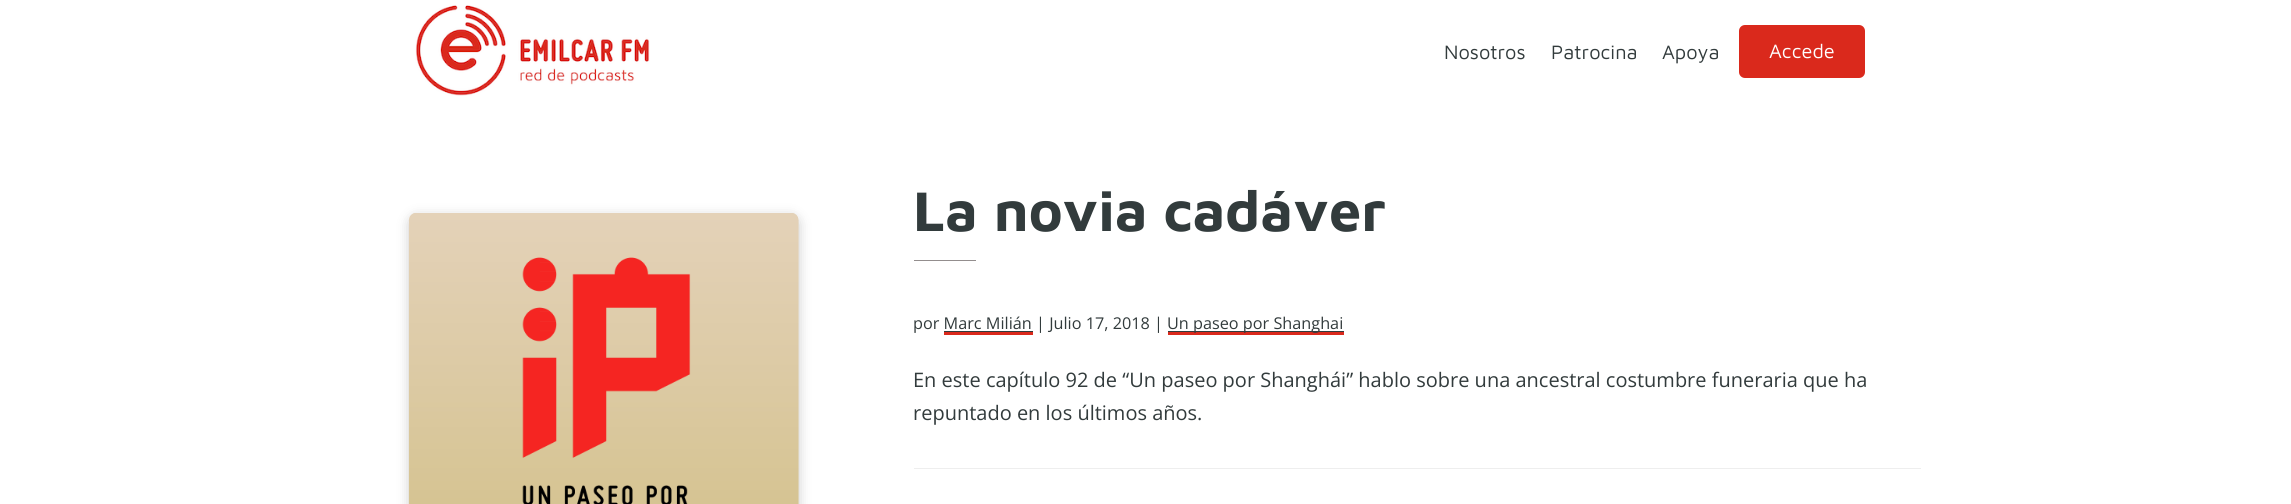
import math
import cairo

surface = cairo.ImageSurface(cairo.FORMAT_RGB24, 2291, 504)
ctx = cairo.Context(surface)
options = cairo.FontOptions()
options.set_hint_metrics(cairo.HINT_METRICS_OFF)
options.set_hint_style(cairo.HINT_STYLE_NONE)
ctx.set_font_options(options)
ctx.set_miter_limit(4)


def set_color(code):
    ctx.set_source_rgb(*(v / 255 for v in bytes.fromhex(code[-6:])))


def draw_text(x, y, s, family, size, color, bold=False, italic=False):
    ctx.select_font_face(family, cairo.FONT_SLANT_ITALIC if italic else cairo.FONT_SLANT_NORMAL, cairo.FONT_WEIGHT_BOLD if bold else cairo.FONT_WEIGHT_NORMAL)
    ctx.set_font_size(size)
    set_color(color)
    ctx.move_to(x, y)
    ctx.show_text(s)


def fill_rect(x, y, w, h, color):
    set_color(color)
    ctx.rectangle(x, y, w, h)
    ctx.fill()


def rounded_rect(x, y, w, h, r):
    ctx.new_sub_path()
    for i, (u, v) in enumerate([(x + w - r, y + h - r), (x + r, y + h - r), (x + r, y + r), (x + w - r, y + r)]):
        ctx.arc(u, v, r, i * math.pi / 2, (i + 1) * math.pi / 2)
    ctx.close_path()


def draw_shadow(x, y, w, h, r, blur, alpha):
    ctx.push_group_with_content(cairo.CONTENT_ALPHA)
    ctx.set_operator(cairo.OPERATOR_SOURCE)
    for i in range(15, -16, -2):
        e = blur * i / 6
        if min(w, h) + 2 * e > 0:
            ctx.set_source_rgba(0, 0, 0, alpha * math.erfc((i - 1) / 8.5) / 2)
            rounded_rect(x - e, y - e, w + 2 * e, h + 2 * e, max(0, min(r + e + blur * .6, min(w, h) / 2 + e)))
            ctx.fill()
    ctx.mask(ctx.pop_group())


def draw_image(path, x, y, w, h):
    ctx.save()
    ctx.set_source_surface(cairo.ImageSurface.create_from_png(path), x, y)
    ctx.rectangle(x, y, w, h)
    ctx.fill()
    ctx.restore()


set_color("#ffffff")
ctx.paint()
draw_image("assets/img1.png", 415, 5, 235, 91)
draw_text(1444, 59, "Nosotros", "Maven Pro", 20, "#323b3c")
draw_text(1551, 59, "Patrocina", "Maven Pro", 20, "#323b3c")
draw_text(1662, 59, "Apoya", "Maven Pro", 20, "#323b3c")
set_color("#da291c")
rounded_rect(1739, 25, 126, 53, 6)
ctx.fill()
draw_text(1769, 58, "Accede", "Maven Pro", 20, "#ffffff")
set_color("#000000")
draw_shadow(409, 216, 390, 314, 8, 6, 0.2)
draw_image("assets/img2.png", 408, 213, 391, 291)
draw_text(913, 231, "La novia cadáver", "Maven Pro", 57.5, "#323b3c", bold=True)
fill_rect(914, 260, 62, 1, "#938e8e")
draw_text(913, 329, "por Marc Milián | Julio 17, 2018 |", "Open Sans", 16.25, "#323b3c")
fill_rect(1168, 332, 176, 3, "#da291c")
fill_rect(1168, 331, 176, 1, "#323b3c")
draw_text(1167, 329, "Un paseo por Shanghai", "Open Sans", 16.25, "#323b3c")
fill_rect(944, 331, 89, 1, "#323b3c")
fill_rect(944, 332, 89, 3, "#da291c")
draw_text(913, 387, "En este capítulo 92 de “Un paseo por Shanghái” hablo sobre una ancestral costumbre funeraria que ha", "Open Sans", 20, "#323b3c")
draw_text(913, 420, "repuntado en los últimos años.", "Open Sans", 20, "#323b3c")
fill_rect(914, 468, 1007, 1, "#eeeeee")
surface.write_to_png("output.png")
